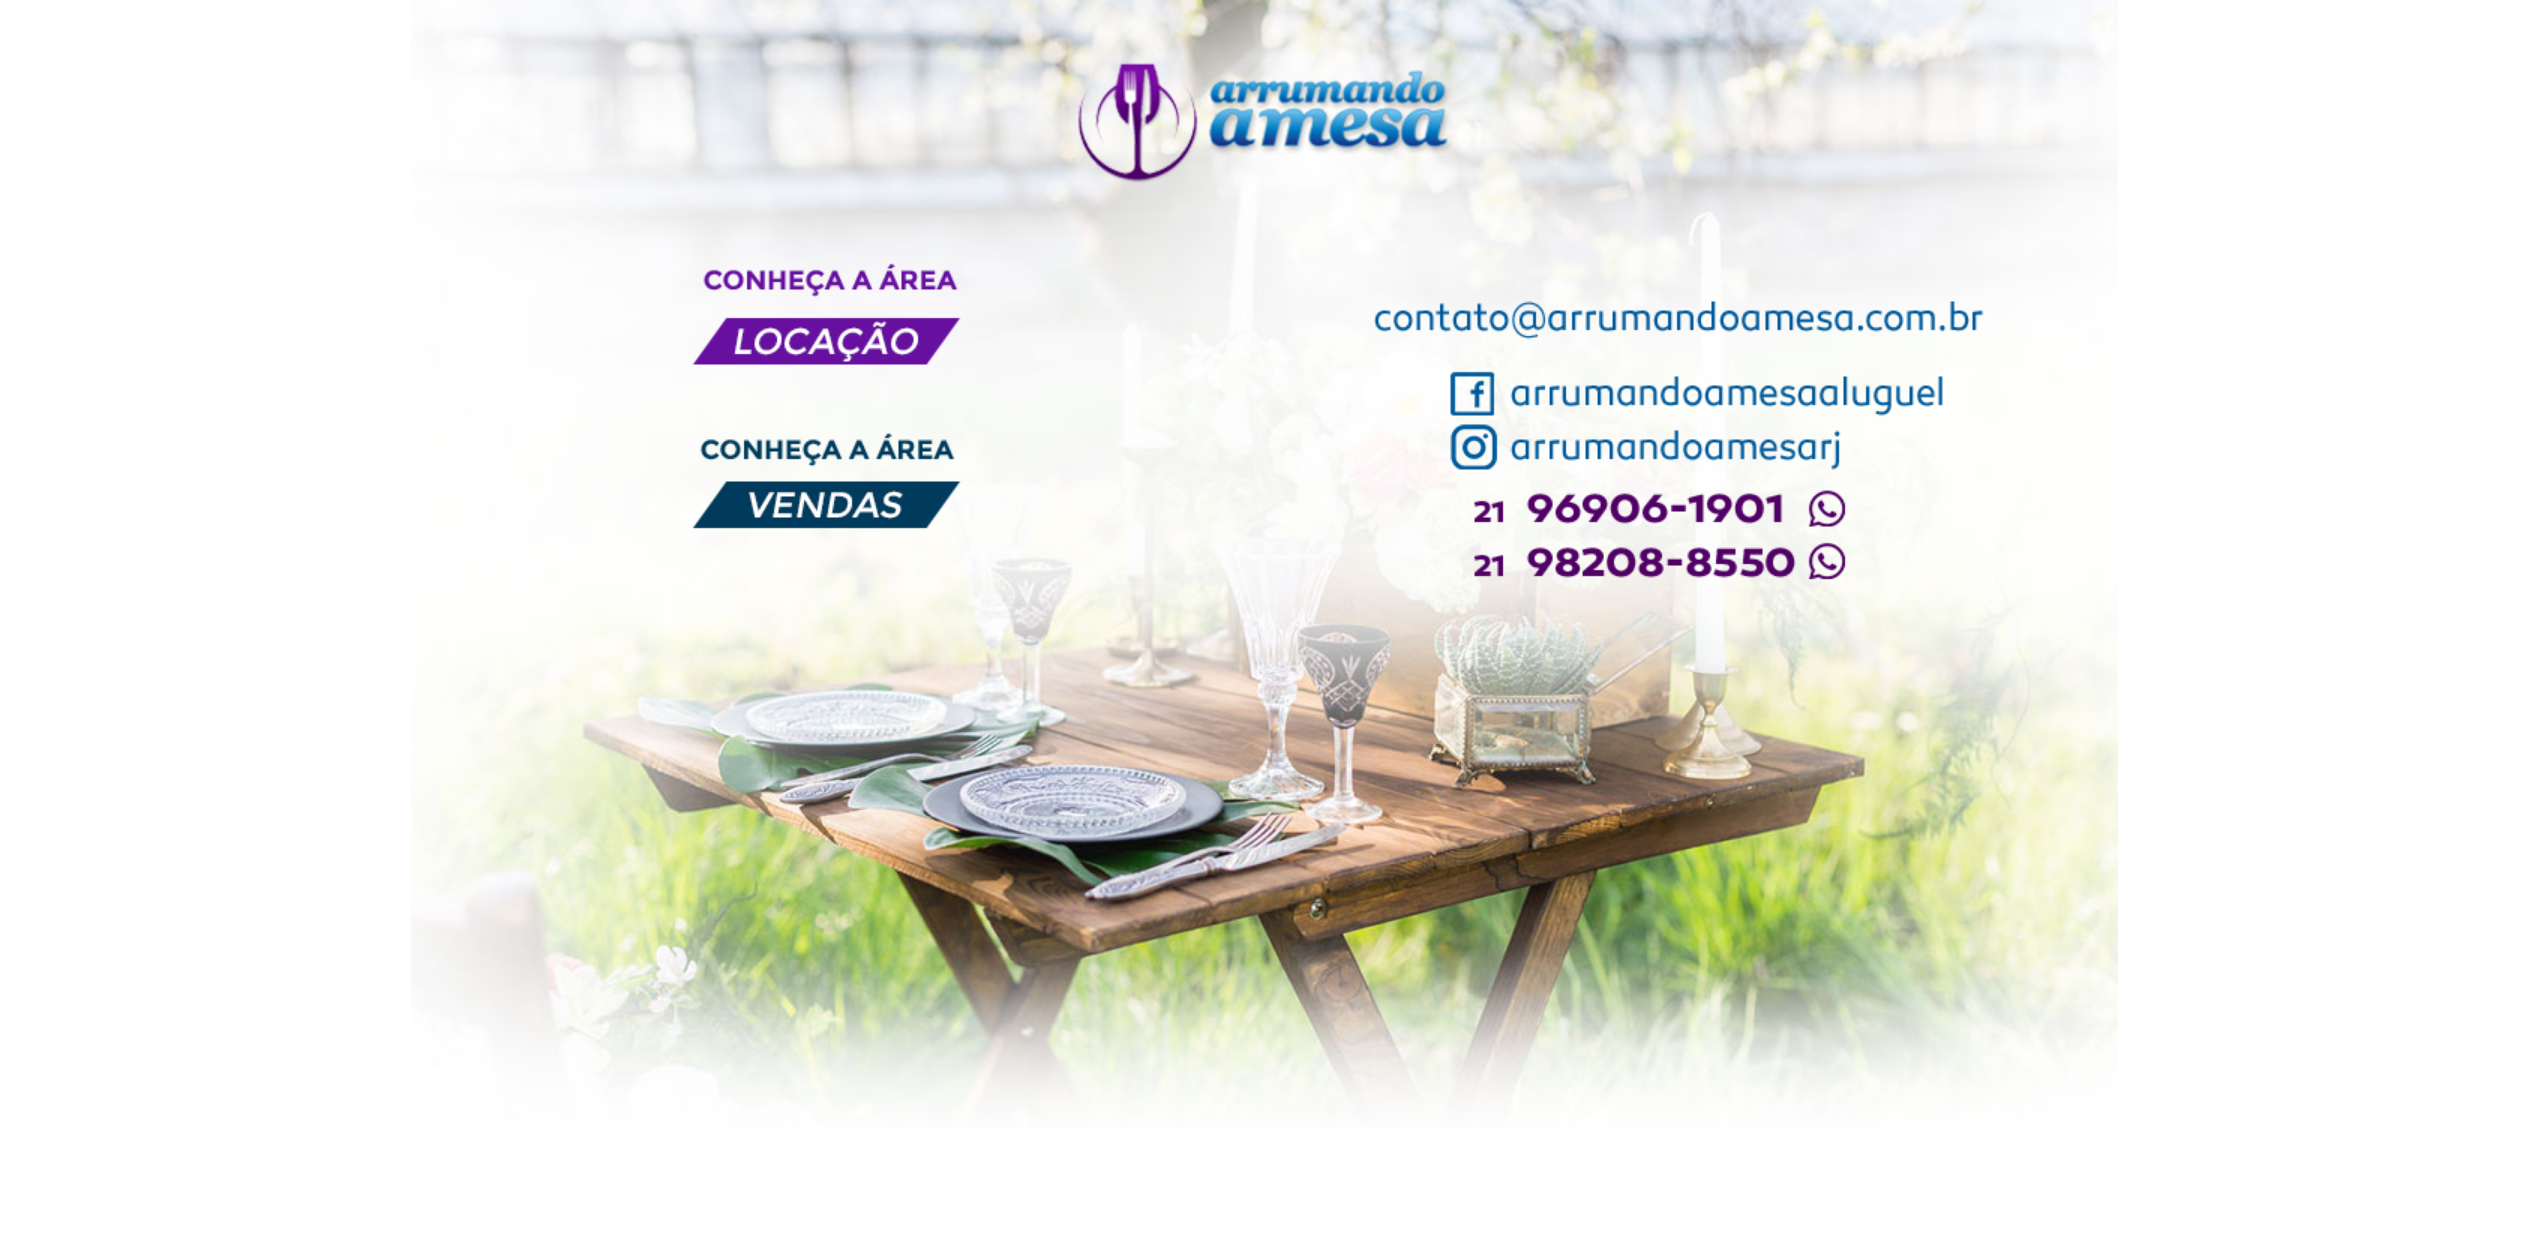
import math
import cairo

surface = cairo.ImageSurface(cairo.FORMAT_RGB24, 2527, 1258)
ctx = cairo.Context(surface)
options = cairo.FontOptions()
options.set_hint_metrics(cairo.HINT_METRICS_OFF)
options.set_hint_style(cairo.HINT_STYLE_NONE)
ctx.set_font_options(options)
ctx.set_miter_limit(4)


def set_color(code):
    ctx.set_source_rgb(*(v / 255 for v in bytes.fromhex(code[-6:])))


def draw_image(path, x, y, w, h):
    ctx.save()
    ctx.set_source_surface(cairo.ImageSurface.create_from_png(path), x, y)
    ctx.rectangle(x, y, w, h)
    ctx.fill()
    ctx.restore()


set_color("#ffffff")
ctx.paint()
draw_image("assets/img1.png", 411, 0, 1707, 1128)
draw_image("assets/img2.png", 1078, 62, 374, 122)
draw_image("assets/img3.png", 692, 263, 269, 102)
draw_image("assets/img4.png", 692, 433, 269, 96)
draw_image("assets/img5.png", 1373, 301, 611, 279)
surface.write_to_png("output.png")
